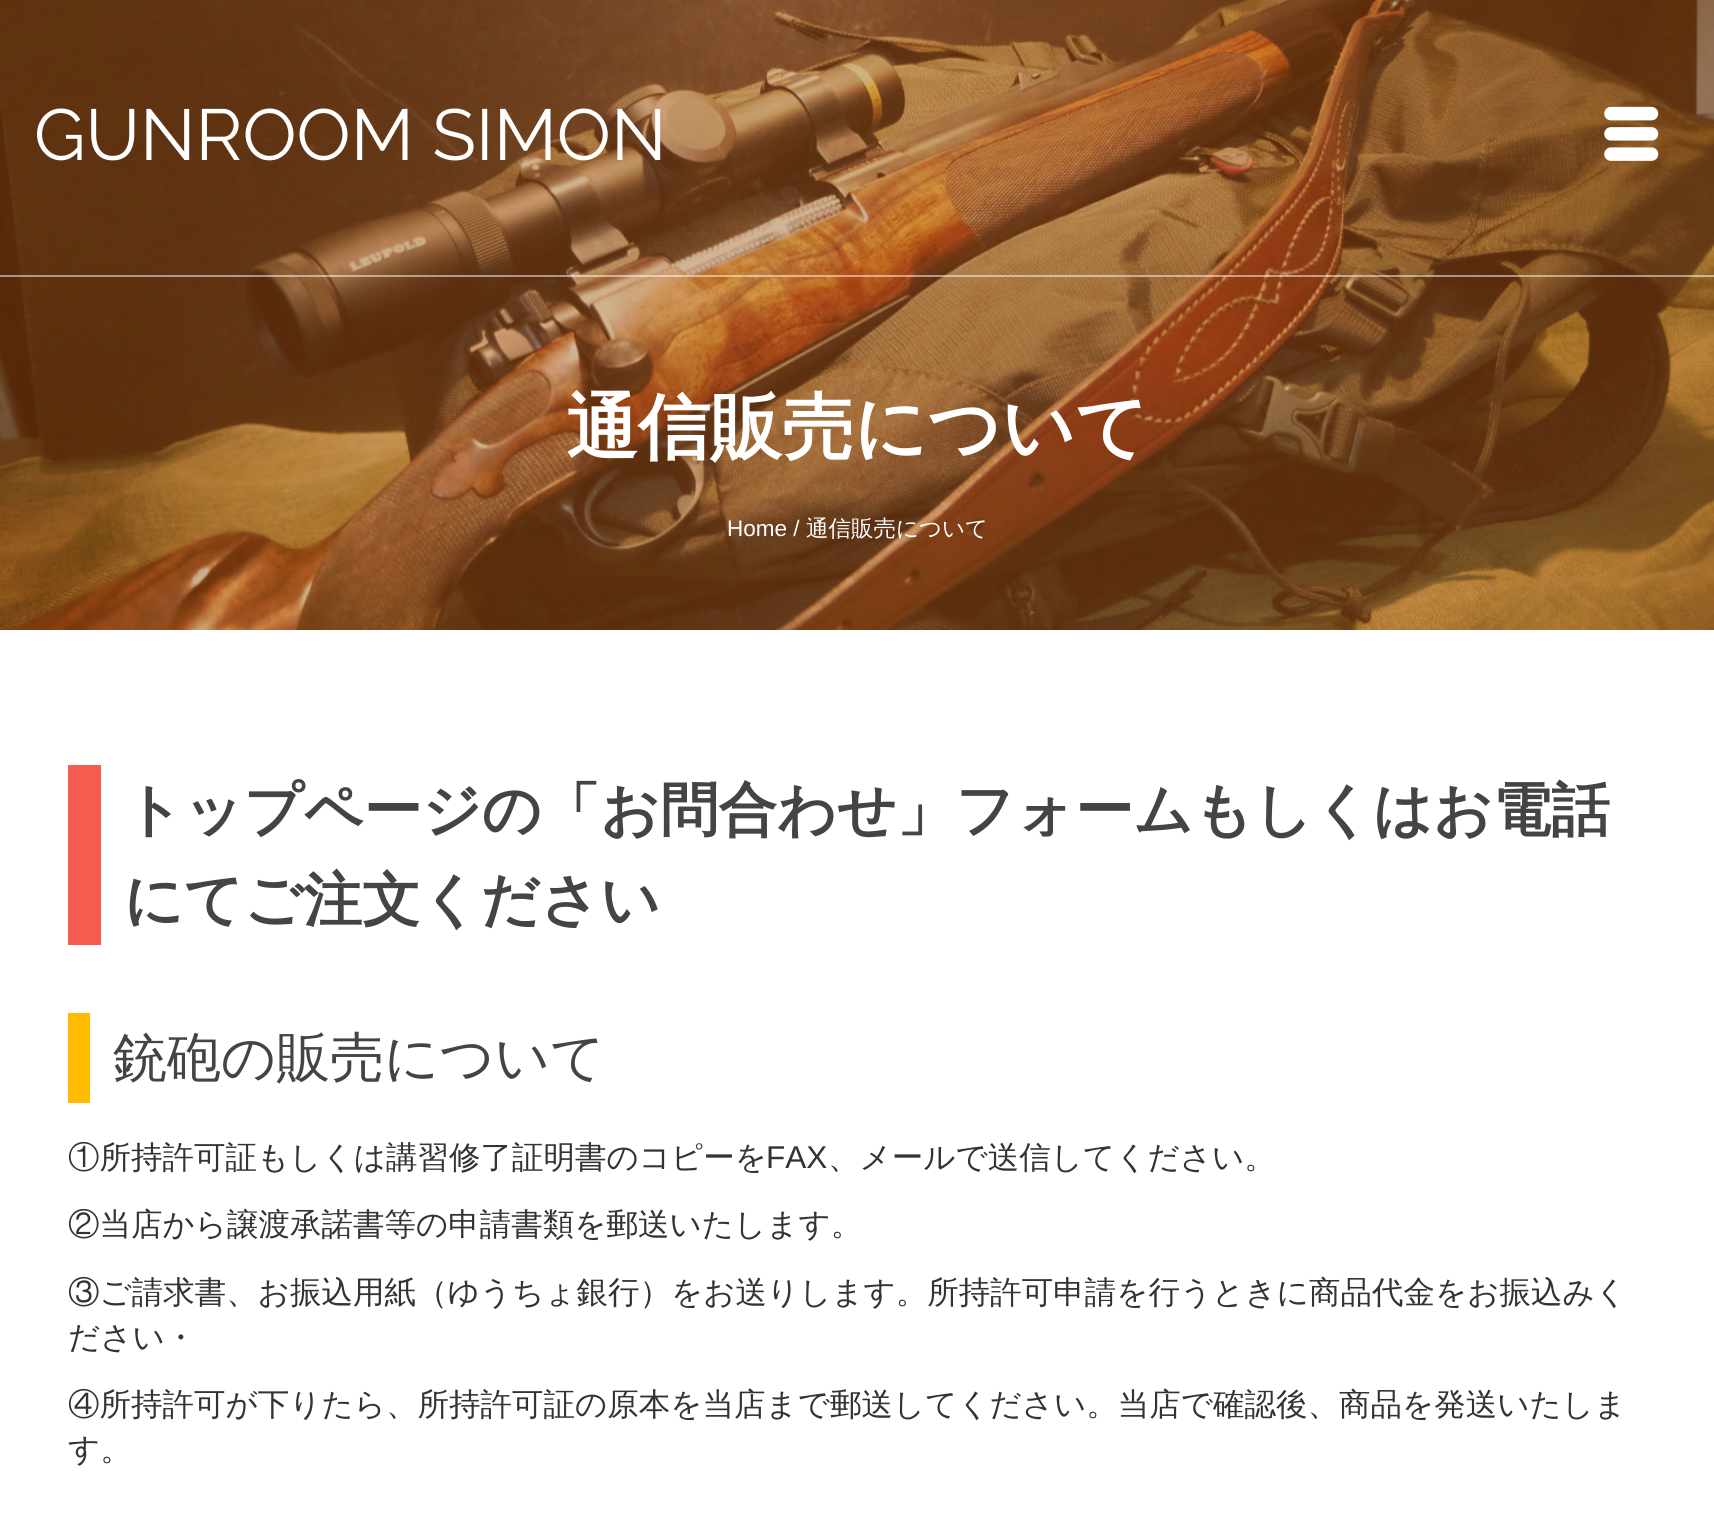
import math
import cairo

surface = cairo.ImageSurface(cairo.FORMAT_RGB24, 1714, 1515)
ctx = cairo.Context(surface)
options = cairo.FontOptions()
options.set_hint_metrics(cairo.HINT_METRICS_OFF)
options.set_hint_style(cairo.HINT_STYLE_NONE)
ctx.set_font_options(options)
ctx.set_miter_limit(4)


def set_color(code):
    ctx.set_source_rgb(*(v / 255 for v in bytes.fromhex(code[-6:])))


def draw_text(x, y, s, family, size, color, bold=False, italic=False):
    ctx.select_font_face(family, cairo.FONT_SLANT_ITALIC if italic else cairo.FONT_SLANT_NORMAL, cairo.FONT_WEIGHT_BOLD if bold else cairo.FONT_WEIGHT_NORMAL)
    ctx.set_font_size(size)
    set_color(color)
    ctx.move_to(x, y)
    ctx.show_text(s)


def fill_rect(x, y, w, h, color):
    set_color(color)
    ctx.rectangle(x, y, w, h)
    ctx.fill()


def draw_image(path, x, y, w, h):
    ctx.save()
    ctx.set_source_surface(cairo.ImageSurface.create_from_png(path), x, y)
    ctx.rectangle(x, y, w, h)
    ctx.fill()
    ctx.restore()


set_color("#ffffff")
ctx.paint()
draw_image("assets/img2.png", 0, 0, 1714, 630)
ctx.set_source_rgba(1, 1, 1, 0.5)
ctx.rectangle(0, 275, 1714, 2)
ctx.fill()
draw_text(34, 160, "GUNROOM SIMON", "Raleway", 72, "#ffffff")
draw_image("assets/img1.png", 1604, 106, 55, 55)
draw_text(566, 452, "通信販売について", "WenQuanYi Zen Hei", 72, "#ffffff", bold=True)
draw_text(727, 536, "Home /", "Liberation Sans", 22.5, "#ffffff")
draw_text(806, 536, "通信販売について", "WenQuanYi Zen Hei Medium", 22.5, "#ffffff")
fill_rect(68, 765, 33, 180, "#f75b50")
draw_text(124, 830, "トップページの「お問合わせ」フォームもしくはお電話", "WenQuanYi Zen Hei", 58.5, "#444444", bold=True)
draw_text(124, 920, "にてご注文ください", "WenQuanYi Zen Hei", 58.5, "#444444", bold=True)
fill_rect(68, 1013, 22, 90, "#ffbb00")
draw_text(113, 1076, "銃砲の販売について", "WenQuanYi Zen Hei Medium", 54, "#444444")
draw_text(68, 1168, "①所持許可証もしくは講習修了証明書のコピーを", "WenQuanYi Zen Hei Medium", 31.5, "#333333")
draw_text(766, 1168, "FAX", "Liberation Sans", 31.5, "#333333")
draw_text(828, 1168, "、メールで送信してください。", "WenQuanYi Zen Hei Medium", 31.5, "#333333")
draw_text(68, 1235, "②当店から譲渡承諾書等の申請書類を郵送いたします。", "WenQuanYi Zen Hei Medium", 31.5, "#333333")
draw_text(68, 1303, "③ご請求書、お振込用紙（ゆうちょ銀行）をお送りします。所持許可申請を行うときに商品代金をお振込みく", "WenQuanYi Zen Hei Medium", 31.5, "#333333")
draw_text(68, 1348, "ださい・", "WenQuanYi Zen Hei Medium", 31.5, "#333333")
draw_text(68, 1415, "④所持許可が下りたら、所持許可証の原本を当店まで郵送してください。当店で確認後、商品を発送いたしま", "WenQuanYi Zen Hei Medium", 31.5, "#333333")
draw_text(68, 1460, "す。", "WenQuanYi Zen Hei Medium", 31.5, "#333333")
surface.write_to_png("output.png")
